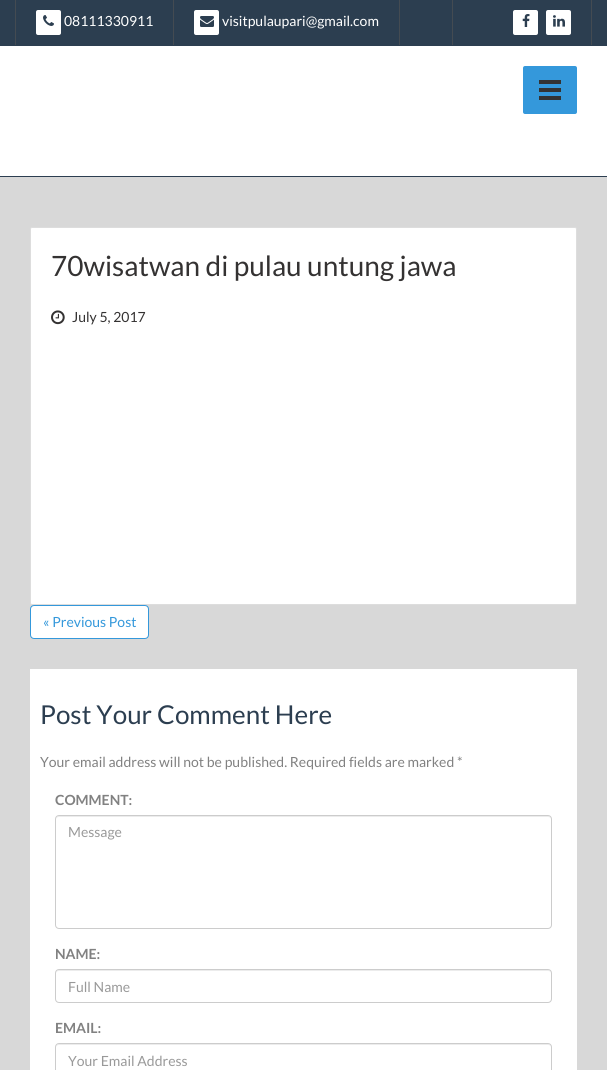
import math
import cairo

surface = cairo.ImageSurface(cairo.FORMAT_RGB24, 607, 1070)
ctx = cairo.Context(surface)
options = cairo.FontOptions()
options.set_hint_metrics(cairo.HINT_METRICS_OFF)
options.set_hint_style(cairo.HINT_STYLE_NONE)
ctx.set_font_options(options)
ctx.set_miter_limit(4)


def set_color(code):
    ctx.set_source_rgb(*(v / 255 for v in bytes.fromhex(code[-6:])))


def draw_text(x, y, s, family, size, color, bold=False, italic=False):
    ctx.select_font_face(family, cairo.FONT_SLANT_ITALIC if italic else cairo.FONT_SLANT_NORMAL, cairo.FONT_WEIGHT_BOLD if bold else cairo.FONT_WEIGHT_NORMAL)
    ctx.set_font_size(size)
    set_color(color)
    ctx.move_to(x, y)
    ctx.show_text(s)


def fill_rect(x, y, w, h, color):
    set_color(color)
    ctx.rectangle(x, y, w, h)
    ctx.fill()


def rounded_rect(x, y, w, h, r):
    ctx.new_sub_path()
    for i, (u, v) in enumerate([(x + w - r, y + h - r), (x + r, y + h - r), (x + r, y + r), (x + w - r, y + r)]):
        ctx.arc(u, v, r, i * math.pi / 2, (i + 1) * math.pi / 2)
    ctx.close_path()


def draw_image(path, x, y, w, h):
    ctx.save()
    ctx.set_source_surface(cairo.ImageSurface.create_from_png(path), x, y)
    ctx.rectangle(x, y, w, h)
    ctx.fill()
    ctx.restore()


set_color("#d8d8d8")
ctx.paint()
fill_rect(0, 46, 607, 130, "#ffffff")
fill_rect(0, 176, 607, 1, "#2c3e50")
fill_rect(0, 0, 607, 46, "#2c3e50")
fill_rect(173, 0, 1, 45, "#444b52")
fill_rect(15, 0, 1, 45, "#444b52")
set_color("#ffffff")
rounded_rect(36, 10, 25, 25, 2)
ctx.fill()
draw_image("assets/img1.png", 43, 15, 11, 11)
draw_text(64, 26, "08111330911", "Lato", 14, "#ffffff")
fill_rect(399, 0, 1, 45, "#444b52")
set_color("#ffffff")
rounded_rect(194, 10, 25, 25, 2)
ctx.fill()
draw_image("assets/img2.png", 200, 16, 14, 11)
draw_text(222, 26, "visitpulaupari@gmail.com", "Lato", 14, "#ffffff")
fill_rect(591, 0, 1, 45, "#444b52")
fill_rect(452, 0, 1, 45, "#444b52")
set_color("#ffffff")
rounded_rect(513, 10, 25, 25, 2)
ctx.fill()
draw_image("assets/img3.png", 522, 14, 8, 13)
rounded_rect(546, 10, 25, 25, 2)
ctx.fill()
draw_image("assets/img4.png", 553, 15, 12, 12)
set_color("#3498db")
rounded_rect(523, 66, 54, 48, 2)
ctx.fill()
fill_rect(539, 80, 22, 4, "#333333")
fill_rect(539, 88, 22, 4, "#333333")
fill_rect(539, 96, 22, 4, "#333333")
set_color("#ffffff")
rounded_rect(30.5, 227.5, 546, 377, 1.5)
ctx.fill_preserve()
set_color("#dddddd")
ctx.set_line_width(1)
ctx.stroke()
draw_text(51, 276, "70wisatwan di pulau untung jawa", "Lato", 28, "#343232")
draw_image("assets/img5.png", 51, 310, 14, 15)
draw_text(72, 322, "July 5, 2017", "Lato", 14, "#343232")
set_color("#ffffff")
rounded_rect(30.5, 605.5, 118, 33, 3.5)
ctx.fill_preserve()
set_color("#3498db")
ctx.stroke()
draw_text(43, 627, "« Previous Post", "Lato", 14, "#3498db")
fill_rect(30, 669, 547, 401, "#ffffff")
draw_text(40, 724, "Post Your Comment Here", "Lato", 26, "#2c3e50")
draw_text(40, 767, "Your email address will not be published. Required fields are marked *", "Lato", 14, "#818181")
draw_text(55, 805, "COMMENT:", "Lato", 14, "#818181", bold=True)
set_color("#ececec")
ctx.new_path()
ctx.move_to(59, 817)
ctx.line_to(548, 817)
ctx.curve_to(550, 817, 551, 818, 551, 820)
ctx.curve_to(551, 818, 550, 816, 548, 816)
ctx.line_to(59, 816)
ctx.curve_to(57, 816, 56, 818, 56, 820)
ctx.curve_to(56, 818, 57, 817, 59, 817)
ctx.close_path()
ctx.fill()
rounded_rect(55.5, 815.5, 496, 113, 3.5)
set_color("#cccccc")
ctx.stroke()
draw_text(68, 837, "Message", "Lato", 14, "#999999")
draw_text(55, 959, "NAME:", "Lato", 14, "#818181", bold=True)
set_color("#ececec")
ctx.new_path()
ctx.move_to(59, 971)
ctx.line_to(548, 971)
ctx.curve_to(550, 971, 551, 972, 551, 974)
ctx.curve_to(551, 972, 550, 970, 548, 970)
ctx.line_to(59, 970)
ctx.curve_to(57, 970, 56, 972, 56, 974)
ctx.curve_to(56, 972, 57, 971, 59, 971)
ctx.close_path()
ctx.fill()
rounded_rect(55.5, 969.5, 496, 33, 3.5)
set_color("#cccccc")
ctx.stroke()
draw_text(68, 992, "Full Name", "Lato", 14, "#999999")
draw_text(55, 1033, "EMAIL:", "Lato", 14, "#818181", bold=True)
set_color("#ececec")
ctx.new_path()
ctx.move_to(59, 1045)
ctx.line_to(548, 1045)
ctx.curve_to(550, 1045, 551, 1046, 551, 1048)
ctx.curve_to(551, 1046, 550, 1044, 548, 1044)
ctx.line_to(59, 1044)
ctx.curve_to(57, 1044, 56, 1046, 56, 1048)
ctx.curve_to(56, 1046, 57, 1045, 59, 1045)
ctx.close_path()
ctx.fill()
rounded_rect(55.5, 1043.5, 496, 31, 3.5)
set_color("#cccccc")
ctx.stroke()
draw_text(68, 1066, "Your Email Address", "Lato", 14, "#999999")
surface.write_to_png("output.png")
